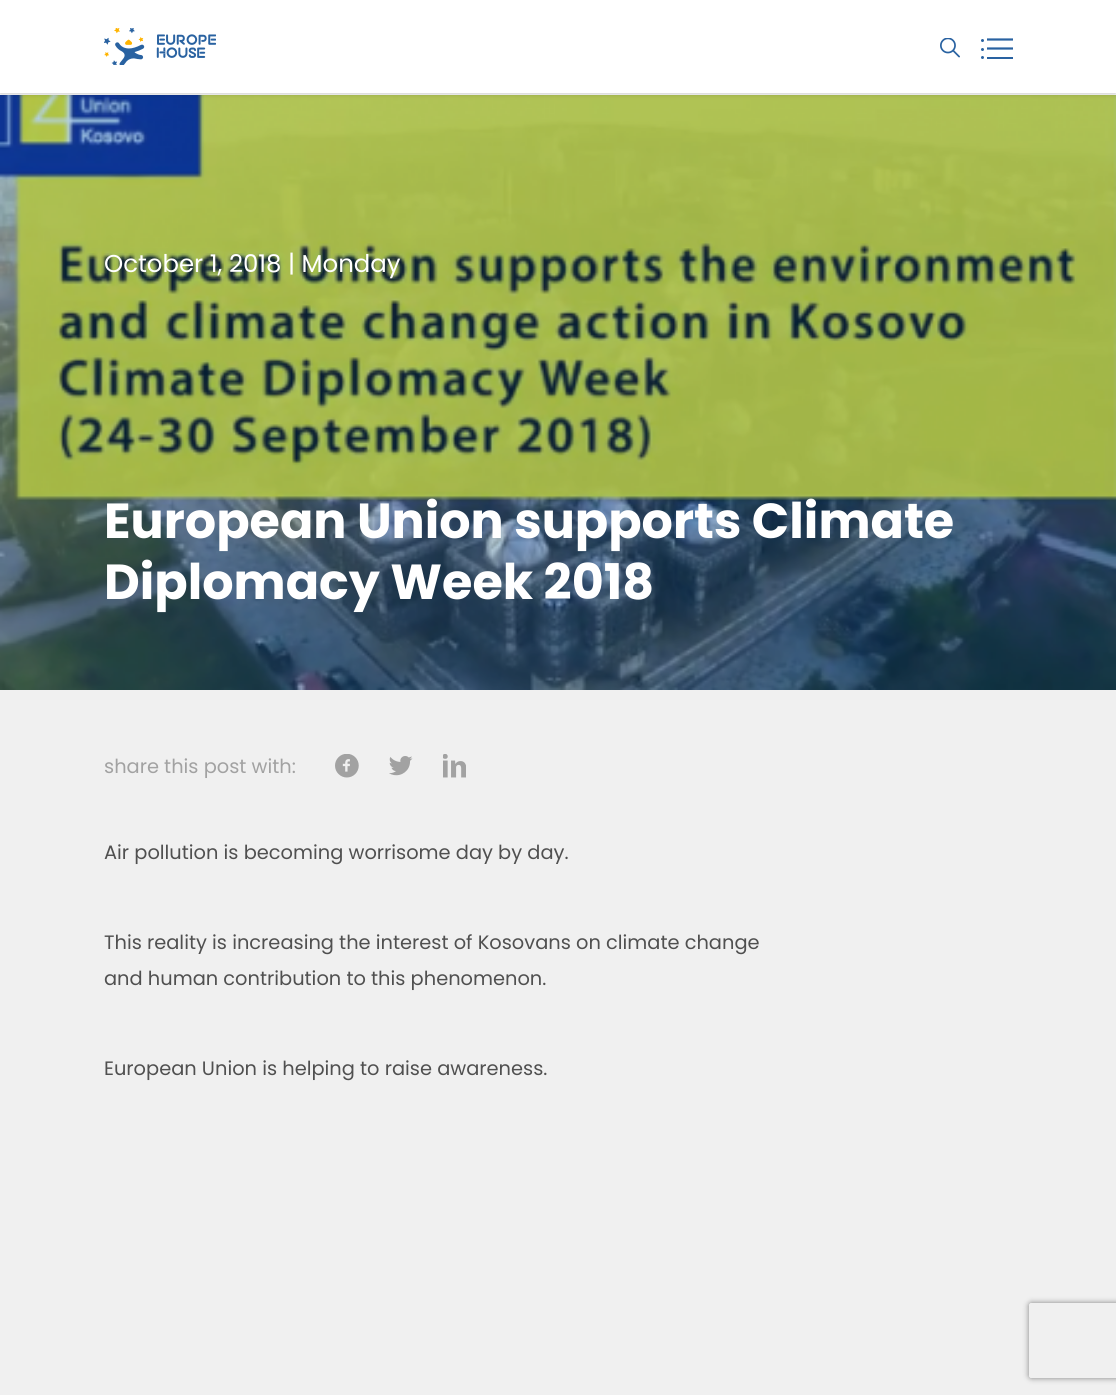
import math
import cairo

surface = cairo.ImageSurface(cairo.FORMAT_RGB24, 1116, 1395)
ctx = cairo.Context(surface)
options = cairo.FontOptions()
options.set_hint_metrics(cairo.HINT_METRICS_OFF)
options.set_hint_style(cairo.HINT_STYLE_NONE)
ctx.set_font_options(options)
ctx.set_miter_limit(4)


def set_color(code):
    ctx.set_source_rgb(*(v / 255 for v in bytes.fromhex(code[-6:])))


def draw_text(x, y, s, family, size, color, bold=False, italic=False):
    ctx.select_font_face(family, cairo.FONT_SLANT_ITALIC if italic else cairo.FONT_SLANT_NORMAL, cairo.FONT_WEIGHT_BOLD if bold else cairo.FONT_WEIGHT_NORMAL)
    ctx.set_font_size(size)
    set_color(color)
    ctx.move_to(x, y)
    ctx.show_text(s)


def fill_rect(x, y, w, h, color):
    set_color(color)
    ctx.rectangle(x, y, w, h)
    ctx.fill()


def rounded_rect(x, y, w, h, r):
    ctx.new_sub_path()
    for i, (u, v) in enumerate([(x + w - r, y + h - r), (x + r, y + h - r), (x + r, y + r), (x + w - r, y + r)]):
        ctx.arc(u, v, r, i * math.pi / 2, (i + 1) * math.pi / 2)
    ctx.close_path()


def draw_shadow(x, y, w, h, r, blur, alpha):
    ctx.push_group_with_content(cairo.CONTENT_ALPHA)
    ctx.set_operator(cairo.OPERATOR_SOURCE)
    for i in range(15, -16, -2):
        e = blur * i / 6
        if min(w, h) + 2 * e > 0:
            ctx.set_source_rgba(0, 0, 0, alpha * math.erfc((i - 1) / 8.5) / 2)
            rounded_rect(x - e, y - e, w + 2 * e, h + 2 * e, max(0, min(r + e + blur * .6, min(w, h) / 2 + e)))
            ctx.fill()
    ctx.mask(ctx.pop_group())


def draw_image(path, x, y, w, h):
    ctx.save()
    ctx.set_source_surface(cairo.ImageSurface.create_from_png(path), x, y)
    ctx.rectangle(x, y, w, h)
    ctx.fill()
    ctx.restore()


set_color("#ffffff")
ctx.paint()
draw_image("assets/img3.png", 0, 95, 1116, 595)
set_color("#000000")
draw_shadow(0, 0, 1116, 93, 0, 3, 0.3)
fill_rect(0, 0, 1116, 93, "#ffffff")
draw_image("assets/img1.png", 104, 28, 112, 37)
draw_image("assets/img2.png", 940, 38, 20, 20)
set_color("#2962a1")
ctx.arc(982.5, 49.5, 1.5, 0, 2 * math.pi)
ctx.fill()
ctx.arc(982.5, 40.5, 1.5, 0, 2 * math.pi)
ctx.fill()
ctx.arc(982.5, 57.5, 1.5, 0, 2 * math.pi)
ctx.fill()
ctx.new_path()
ctx.move_to(1013, 39.5)
ctx.line_to(987, 39.5)
ctx.set_line_width(2.2)
ctx.stroke()
ctx.new_path()
ctx.move_to(1013, 48.5)
ctx.line_to(987, 48.5)
ctx.move_to(987, 48.5)
ctx.line_to(1013, 48.5)
ctx.stroke()
fill_rect(987, 57, 26, 2, "#2962a1")
draw_text(104, 272, "October 1, 2018 | Monday", "Poppins", 24.4, "#ffffff")
draw_text(104, 538, "European Union supports Climate", "Poppins", 49.2, "#ffffff", bold=True)
draw_text(104, 599, "Diplomacy Week 2018", "Poppins", 49.2, "#ffffff", bold=True)
fill_rect(0, 690, 1116, 705, "#f0f0f0")
draw_text(104, 773, "share this post with:", "Poppins", 19.4, "#a2a2a2")
draw_image("assets/img4.png", 335, 754, 24, 24)
draw_image("assets/img5.png", 389, 756, 24, 20)
draw_image("assets/img6.png", 443, 754, 23, 24)
draw_text(104, 859, "Air pollution is becoming worrisome day by day.", "Poppins", 19.4, "#505050")
draw_text(104, 949, "This reality is increasing the interest of Kosovans on climate change", "Poppins", 19.4, "#505050")
draw_text(104, 985, "and human contribution to this phenomenon.", "Poppins", 19.4, "#505050")
draw_text(104, 1075, "European Union is helping to raise awareness.", "Poppins", 19.4, "#505050")
ctx.save()
ctx.set_fill_rule(cairo.FILL_RULE_EVEN_ODD)
ctx.new_path()
ctx.move_to(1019, 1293)
ctx.line_to(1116, 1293)
ctx.line_to(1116, 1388)
ctx.line_to(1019, 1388)
ctx.close_path()
ctx.move_to(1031.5, 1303)
ctx.line_to(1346.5, 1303)
ctx.curve_to(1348, 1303, 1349, 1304, 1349, 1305.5)
ctx.line_to(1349, 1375.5)
ctx.curve_to(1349, 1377, 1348, 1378, 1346.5, 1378)
ctx.line_to(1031.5, 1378)
ctx.curve_to(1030, 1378, 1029, 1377, 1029, 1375.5)
ctx.line_to(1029, 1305.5)
ctx.curve_to(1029, 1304, 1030, 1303, 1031.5, 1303)
ctx.close_path()
ctx.clip()
set_color("#808080")
draw_shadow(1029, 1303, 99, 75, 2.5, 3, 1)
ctx.restore()
surface.write_to_png("output.png")
